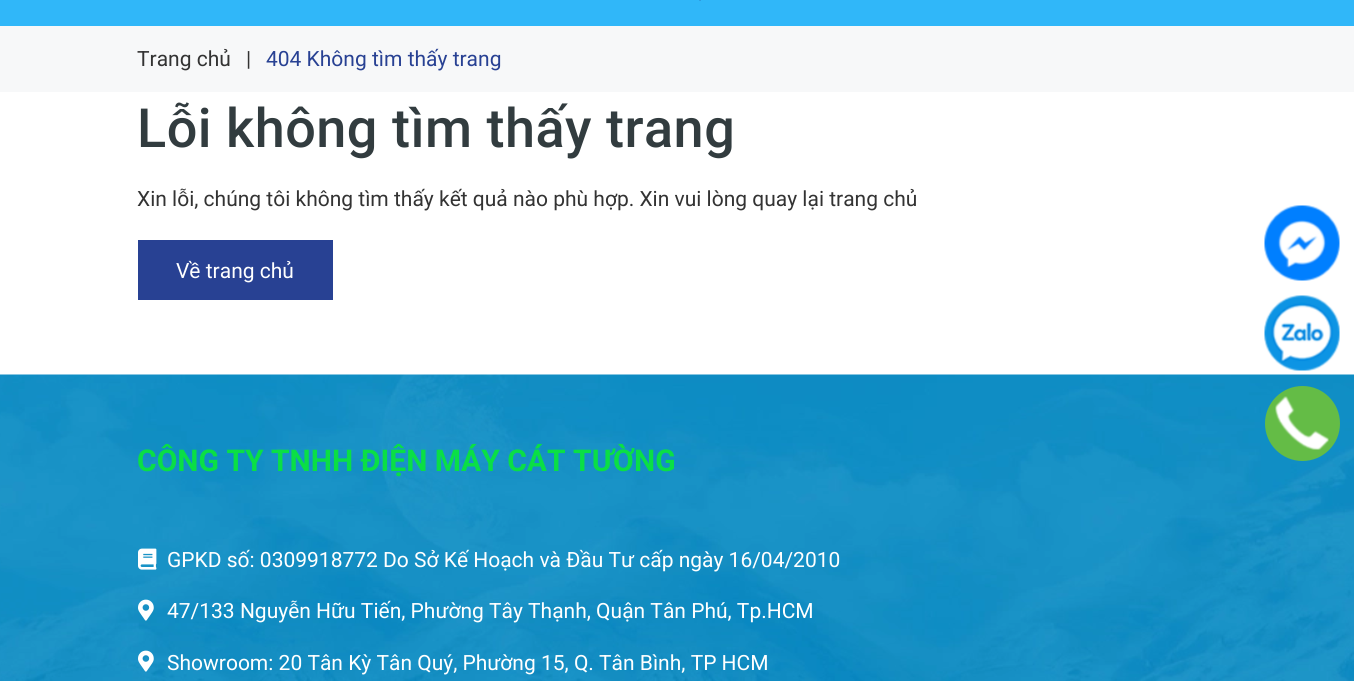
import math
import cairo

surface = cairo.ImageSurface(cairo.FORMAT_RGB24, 1354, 681)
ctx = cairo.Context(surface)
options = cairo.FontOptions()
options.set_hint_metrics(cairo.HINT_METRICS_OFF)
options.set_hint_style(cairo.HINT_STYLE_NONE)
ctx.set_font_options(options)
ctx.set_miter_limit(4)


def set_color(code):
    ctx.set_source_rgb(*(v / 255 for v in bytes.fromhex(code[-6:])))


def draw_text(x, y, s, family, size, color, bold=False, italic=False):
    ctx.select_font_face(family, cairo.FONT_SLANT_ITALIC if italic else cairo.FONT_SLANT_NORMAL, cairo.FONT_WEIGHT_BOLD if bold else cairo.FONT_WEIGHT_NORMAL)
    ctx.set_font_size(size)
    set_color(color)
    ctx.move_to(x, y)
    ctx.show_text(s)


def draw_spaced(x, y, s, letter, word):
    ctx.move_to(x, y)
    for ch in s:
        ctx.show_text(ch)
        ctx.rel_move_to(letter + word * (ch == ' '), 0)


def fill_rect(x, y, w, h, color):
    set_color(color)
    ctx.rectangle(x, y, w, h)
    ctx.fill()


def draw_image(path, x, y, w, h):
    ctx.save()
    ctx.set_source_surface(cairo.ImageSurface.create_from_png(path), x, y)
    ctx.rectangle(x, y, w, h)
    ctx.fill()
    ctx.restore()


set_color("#ffffff")
ctx.paint()
fill_rect(0, 0, 1354, 26, "#30b7f9")
draw_image("assets/img1.png", 699, 0, 2, 1)
fill_rect(0, 26, 1354, 66, "#f7f8f9")
draw_text(137, 66, "Trang chủ", "Roboto", 21, "#333333")
draw_text(246, 66, "|", "Roboto", 21, "#333333")
draw_text(266, 66, "404 Không tìm thấy trang", "Roboto", 21, "#284193")
ctx.select_font_face("Roboto Medium")
ctx.set_font_size(54)
set_color("#323c3f")
draw_spaced(137, 147, "Lỗi không tìm thấy trang", 0.5, 0)
draw_text(137, 206, "Xin lỗi, chúng tôi không tìm thấy kết quả nào phù hợp. Xin vui lòng quay lại trang chủ", "Roboto", 21, "#333333")
fill_rect(138, 240, 195, 60, "#284193")
draw_text(176, 278, "Về trang chủ", "Roboto", 21, "#ffffff")
draw_image("assets/img2.png", 1264, 205, 76, 76)
draw_image("assets/img3.png", 1264, 295, 76, 76)
draw_image("assets/img5.png", 0, 374, 1354, 307)
set_color("#64bc46")
ctx.arc(1302.5, 423.5, 37.5, 0, 2 * math.pi)
ctx.fill()
draw_image("assets/img4.png", 1275, 396, 54, 54)
draw_text(137, 471, "CÔNG TY TNHH ĐIỆN MÁY CÁT TƯỜNG", "Roboto", 30, "#0adf45", bold=True)
draw_image("assets/img6.png", 138, 548, 19, 22)
draw_text(167, 567, "GPKD số: 0309918772 Do Sở Kế Hoạch và Đầu Tư cấp ngày 16/04/2010", "Roboto", 21, "#ffffff")
draw_image("assets/img7.png", 138, 599, 16, 22)
draw_text(167, 618, "47/133 Nguyễn Hữu Tiến, Phường Tây Thạnh, Quận Tân Phú, Tp.HCM", "Roboto", 21, "#ffffff")
draw_image("assets/img8.png", 138, 650, 16, 22)
draw_text(167, 670, "Showroom: 20 Tân Kỳ Tân Quý, Phường 15, Q. Tân Bình, TP HCM", "Roboto", 21, "#ffffff")
surface.write_to_png("output.png")
